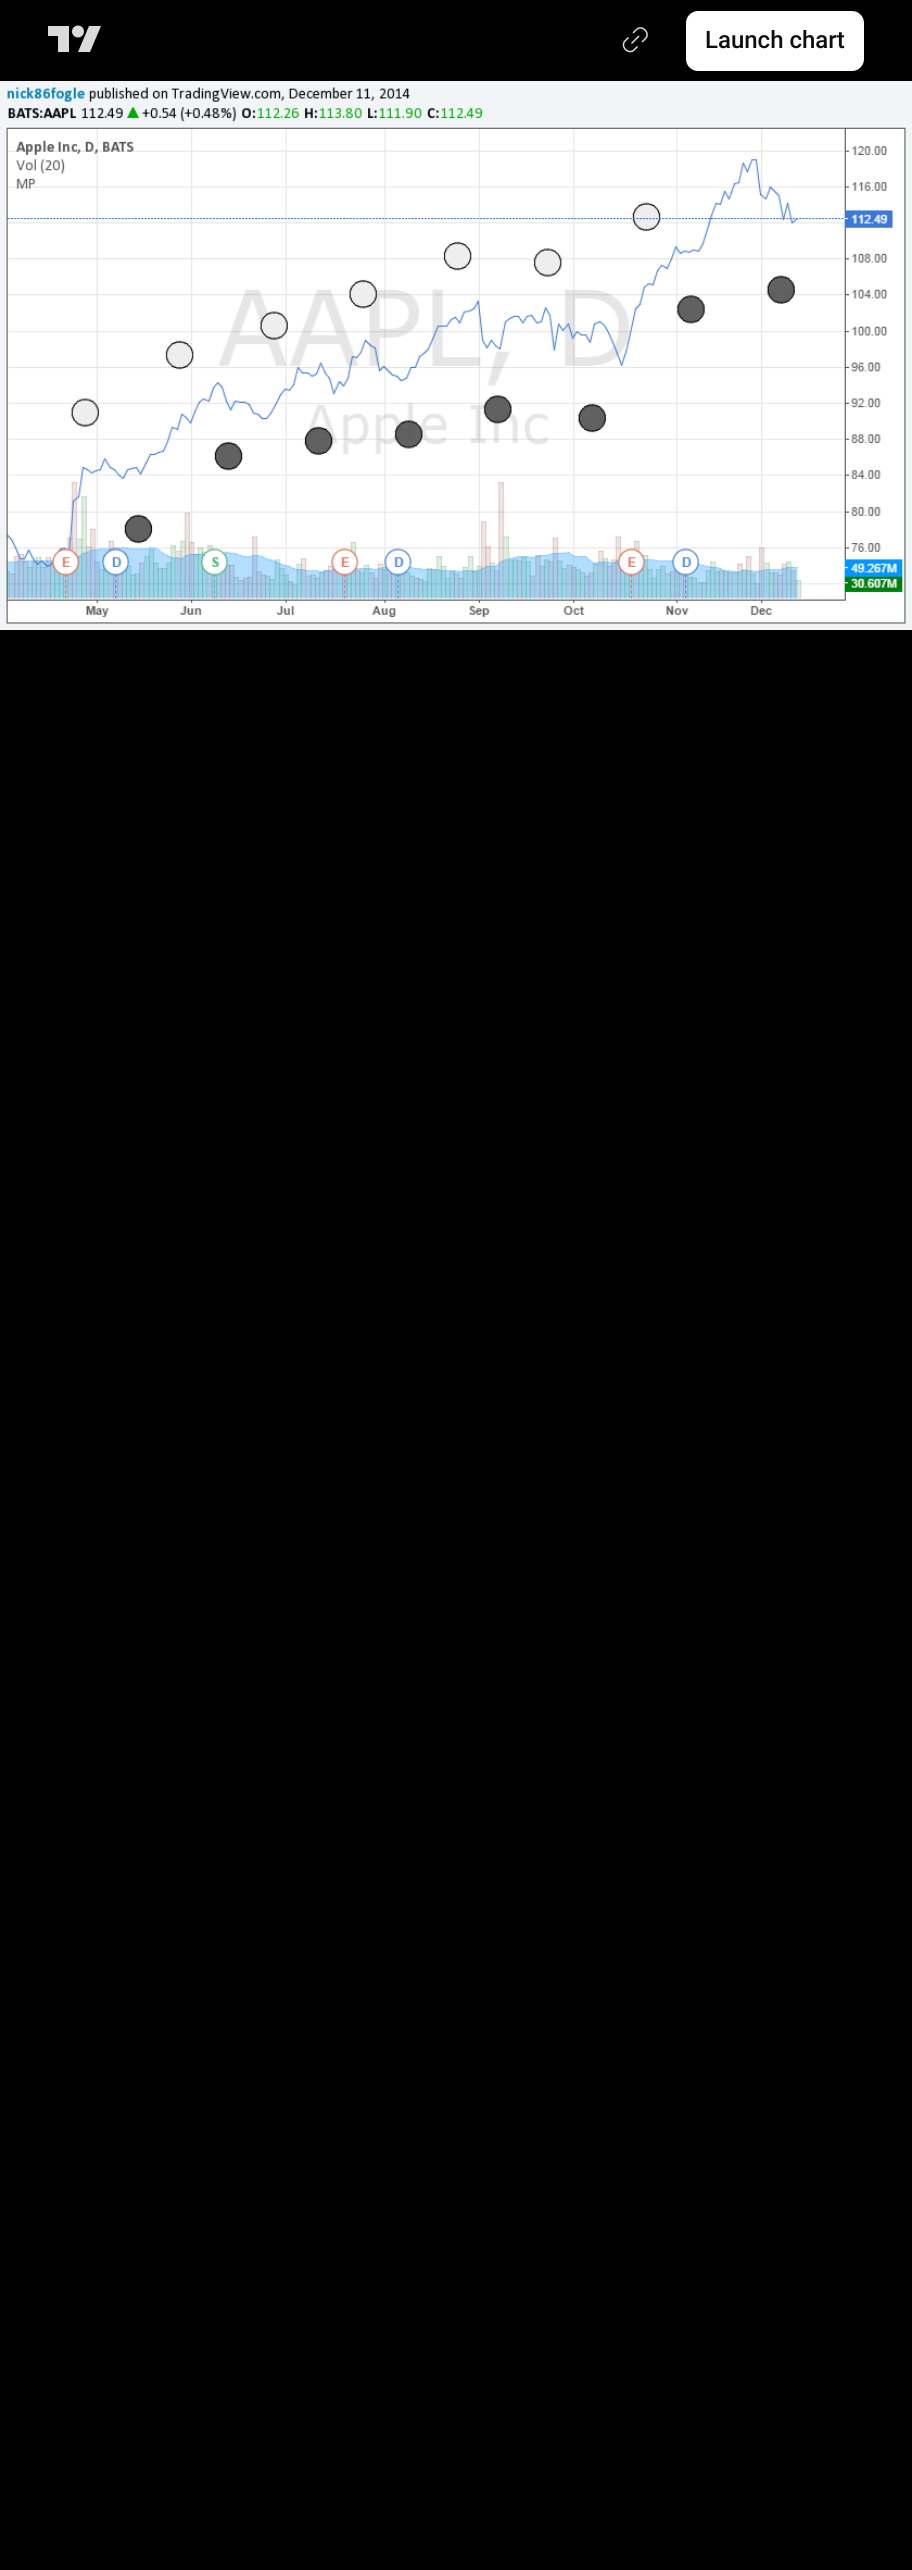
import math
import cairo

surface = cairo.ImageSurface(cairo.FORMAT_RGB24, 912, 2570)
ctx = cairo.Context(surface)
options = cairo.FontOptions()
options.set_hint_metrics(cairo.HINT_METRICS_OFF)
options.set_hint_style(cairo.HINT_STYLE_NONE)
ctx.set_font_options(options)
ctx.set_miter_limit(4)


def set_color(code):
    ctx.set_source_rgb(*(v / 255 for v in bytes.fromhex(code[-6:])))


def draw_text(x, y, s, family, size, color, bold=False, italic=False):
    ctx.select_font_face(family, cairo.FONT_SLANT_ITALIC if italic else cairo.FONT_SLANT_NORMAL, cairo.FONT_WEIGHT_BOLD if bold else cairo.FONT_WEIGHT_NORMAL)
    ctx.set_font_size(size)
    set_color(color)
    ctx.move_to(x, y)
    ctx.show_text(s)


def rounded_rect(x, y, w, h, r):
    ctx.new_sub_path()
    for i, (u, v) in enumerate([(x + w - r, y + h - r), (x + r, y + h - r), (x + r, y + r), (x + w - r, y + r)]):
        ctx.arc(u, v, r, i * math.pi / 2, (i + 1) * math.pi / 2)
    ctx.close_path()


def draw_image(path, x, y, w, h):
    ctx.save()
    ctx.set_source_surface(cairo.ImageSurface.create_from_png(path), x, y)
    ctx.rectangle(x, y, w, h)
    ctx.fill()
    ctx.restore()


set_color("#000000")
ctx.paint()
set_color("#dbdbdb")
ctx.new_path()
ctx.move_to(69, 52)
ctx.line_to(58, 52)
ctx.line_to(58, 36)
ctx.line_to(48, 36)
ctx.line_to(48, 26)
ctx.line_to(69, 26)
ctx.close_path()
ctx.move_to(90, 52)
ctx.line_to(78, 52)
ctx.line_to(89, 26)
ctx.line_to(101, 26)
ctx.close_path()
ctx.fill()
ctx.arc(78, 31.5, 6, 0, 2 * math.pi)
ctx.fill()
draw_image("assets/img1.png", 622, 27, 26, 26)
set_color("#ffffff")
rounded_rect(687, 12, 176, 58, 11)
ctx.fill_preserve()
ctx.stroke()
draw_text(705, 48, "Launch chart", "Roboto Medium", 24, "#0f0f0f")
draw_image("assets/img2.png", 0, 81, 912, 549)
surface.write_to_png("output.png")
